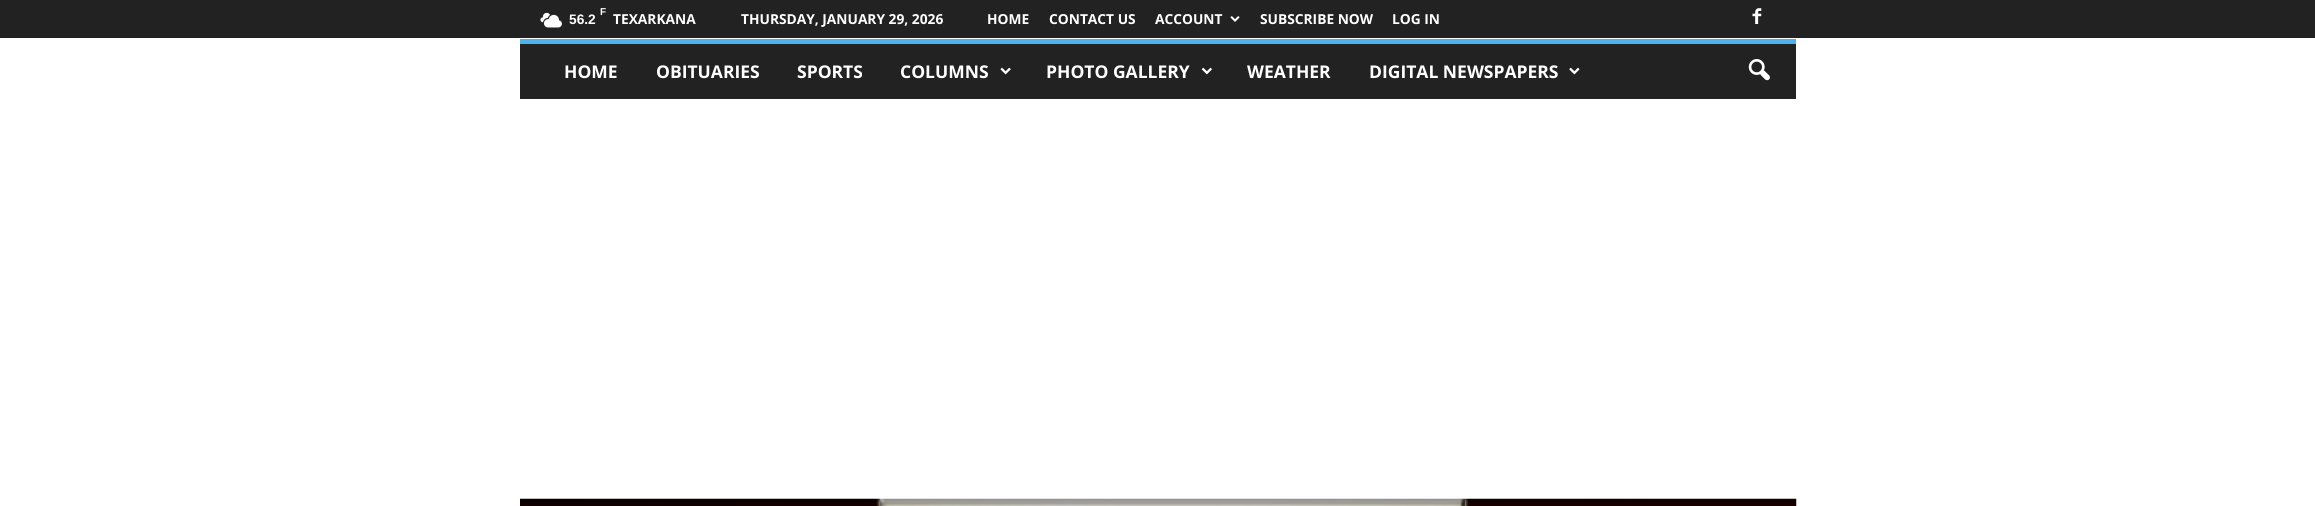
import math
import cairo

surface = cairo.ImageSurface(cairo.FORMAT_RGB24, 2315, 506)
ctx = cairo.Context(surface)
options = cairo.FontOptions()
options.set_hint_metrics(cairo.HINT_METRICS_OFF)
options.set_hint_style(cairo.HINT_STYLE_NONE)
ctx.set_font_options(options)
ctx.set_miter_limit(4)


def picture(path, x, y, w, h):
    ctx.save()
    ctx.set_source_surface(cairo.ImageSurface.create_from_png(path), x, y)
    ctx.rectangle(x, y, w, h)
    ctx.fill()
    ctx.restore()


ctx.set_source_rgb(1, 1, 1)
ctx.paint()
ctx.set_source_rgb(0.133, 0.133, 0.133)
ctx.rectangle(0, 0, 2315, 38)
ctx.fill()
picture("img1.png", 540, 12, 22, 16)
ctx.select_font_face("Liberation Sans", cairo.FONT_SLANT_NORMAL, cairo.FONT_WEIGHT_BOLD)
ctx.set_font_size(10)
ctx.set_source_rgb(1, 1, 1)
ctx.move_to(600, 15)
ctx.show_text("F")
ctx.set_font_size(13.75)
ctx.move_to(569, 24)
ctx.show_text("56.2")
ctx.select_font_face("Open Sans", cairo.FONT_SLANT_NORMAL, cairo.FONT_WEIGHT_BOLD)
ctx.move_to(613, 24)
ctx.show_text("TEXARKANA")
ctx.move_to(741, 24)
ctx.show_text("THURSDAY, JANUARY 29, 2026")
ctx.move_to(987, 24)
ctx.show_text("HOME")
ctx.move_to(1049, 24)
ctx.show_text("CONTACT US")
ctx.move_to(1155, 24)
ctx.show_text("ACCOUNT")
picture("img2.png", 1230, 16, 10, 6)
ctx.move_to(1260, 24)
ctx.show_text("SUBSCRIBE NOW")
ctx.move_to(1392, 24)
ctx.show_text("LOG IN")
picture("img3.png", 1752, 8, 10, 16)
ctx.set_source_rgb(0.133, 0.133, 0.133)
ctx.rectangle(520, 44, 1276, 55)
ctx.fill()
ctx.set_source_rgb(0.302, 0.698, 0.925)
ctx.rectangle(520, 39, 1276, 5)
ctx.fill()
ctx.set_font_size(17.5)
ctx.set_source_rgb(1, 1, 1)
ctx.move_to(564, 78)
ctx.show_text("HOME")
ctx.move_to(656, 78)
ctx.show_text("OBITUARIES")
ctx.move_to(797, 78)
ctx.show_text("SPORTS")
ctx.move_to(900, 78)
ctx.show_text("COLUMNS")
picture("img4.png", 1000, 67, 11, 8)
ctx.move_to(1046, 78)
ctx.show_text("PHOTO GALLERY")
picture("img5.png", 1201, 67, 11, 8)
ctx.move_to(1247, 78)
ctx.show_text("WEATHER")
ctx.move_to(1369, 78)
ctx.show_text("DIGITAL NEWSPAPERS")
picture("img6.png", 1569, 67, 11, 8)
picture("img7.png", 1748, 59, 22, 22)
picture("img8.png", 520, 498, 1277, 8)
surface.write_to_png("page.png")
